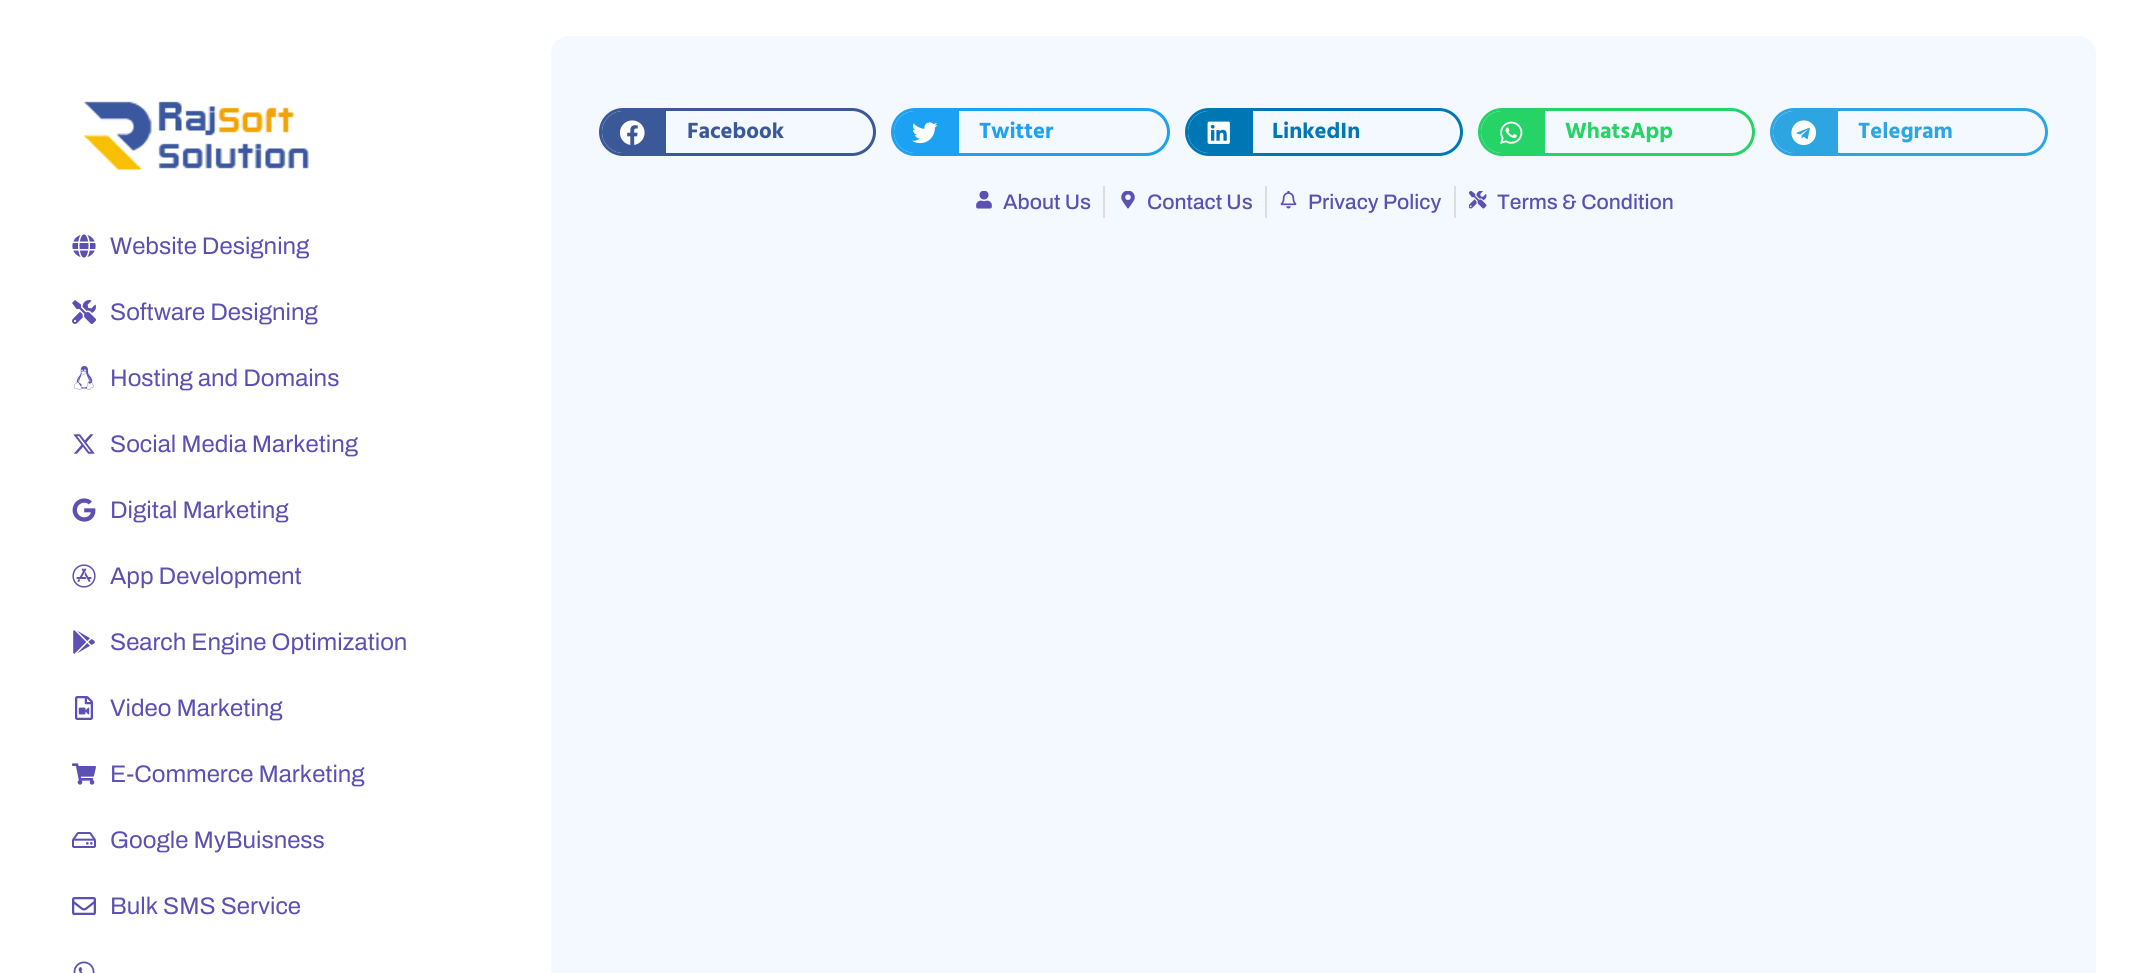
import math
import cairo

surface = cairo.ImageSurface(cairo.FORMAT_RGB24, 2131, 973)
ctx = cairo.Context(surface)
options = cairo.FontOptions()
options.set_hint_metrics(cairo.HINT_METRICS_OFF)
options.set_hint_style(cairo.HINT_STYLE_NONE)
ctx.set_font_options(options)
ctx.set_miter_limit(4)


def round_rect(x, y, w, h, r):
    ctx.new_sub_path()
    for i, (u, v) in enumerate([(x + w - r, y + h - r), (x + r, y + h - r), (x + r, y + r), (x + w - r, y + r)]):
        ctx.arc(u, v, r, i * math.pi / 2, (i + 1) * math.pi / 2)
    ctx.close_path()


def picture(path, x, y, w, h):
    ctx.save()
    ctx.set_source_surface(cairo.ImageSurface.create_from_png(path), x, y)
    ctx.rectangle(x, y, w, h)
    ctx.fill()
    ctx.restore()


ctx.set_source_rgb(1, 1, 1)
ctx.paint()
ctx.set_source_rgb(0.957, 0.969, 1)
round_rect(551, 36, 1545, 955, 18)
ctx.fill()
round_rect(600.5, 109.5, 274, 45, 22.5)
ctx.set_source_rgb(0.231, 0.349, 0.596)
ctx.set_line_width(3)
ctx.stroke()
ctx.new_path()
ctx.move_to(623, 111)
ctx.line_to(666, 111)
ctx.line_to(666, 153)
ctx.line_to(623, 153)
ctx.curve_to(611.5, 153, 602, 143.5, 602, 132)
ctx.curve_to(602, 120.5, 611.5, 111, 623, 111)
ctx.close_path()
ctx.fill()
picture("img1.png", 620, 120, 25, 25)
ctx.select_font_face("Hind", cairo.FONT_SLANT_NORMAL, cairo.FONT_WEIGHT_BOLD)
ctx.set_font_size(22.5)
ctx.move_to(687, 138)
ctx.show_text("Facebook")
round_rect(892.5, 109.5, 276, 45, 22.5)
ctx.set_source_rgb(0.114, 0.631, 0.949)
ctx.stroke()
ctx.new_path()
ctx.move_to(915, 111)
ctx.line_to(959, 111)
ctx.line_to(959, 153)
ctx.line_to(915, 153)
ctx.curve_to(903.5, 153, 894, 143.5, 894, 132)
ctx.curve_to(894, 120.5, 903.5, 111, 915, 111)
ctx.close_path()
ctx.fill()
picture("img2.png", 912, 122, 26, 22)
ctx.move_to(979, 138)
ctx.show_text("Twitter")
round_rect(1186.5, 109.5, 275, 45, 22.5)
ctx.set_source_rgb(0, 0.467, 0.71)
ctx.stroke()
ctx.new_path()
ctx.move_to(1209, 111)
ctx.line_to(1253, 111)
ctx.line_to(1253, 153)
ctx.line_to(1209, 153)
ctx.curve_to(1197.5, 153, 1188, 143.5, 1188, 132)
ctx.curve_to(1188, 120.5, 1197.5, 111, 1209, 111)
ctx.close_path()
ctx.fill()
picture("img3.png", 1207, 121, 23, 23)
ctx.move_to(1272, 138)
ctx.show_text("LinkedIn")
round_rect(1479.5, 109.5, 274, 45, 22.5)
ctx.set_source_rgb(0.145, 0.827, 0.4)
ctx.stroke()
ctx.new_path()
ctx.move_to(1502, 111)
ctx.line_to(1545, 111)
ctx.line_to(1545, 153)
ctx.line_to(1502, 153)
ctx.curve_to(1490.5, 153, 1481, 143.5, 1481, 132)
ctx.curve_to(1481, 120.5, 1490.5, 111, 1502, 111)
ctx.close_path()
ctx.fill()
picture("img4.png", 1500, 121, 23, 23)
ctx.move_to(1565, 138)
ctx.show_text("WhatsApp")
round_rect(1771.5, 109.5, 275, 45, 22.5)
ctx.set_source_rgb(0.173, 0.647, 0.878)
ctx.stroke()
ctx.new_path()
ctx.move_to(1794, 111)
ctx.line_to(1838, 111)
ctx.line_to(1838, 153)
ctx.line_to(1794, 153)
ctx.curve_to(1782.5, 153, 1773, 143.5, 1773, 132)
ctx.curve_to(1773, 120.5, 1782.5, 111, 1794, 111)
ctx.close_path()
ctx.fill()
picture("img5.png", 1791, 120, 26, 26)
ctx.move_to(1858, 138)
ctx.show_text("Telegram")
picture("img6.png", 976, 191, 16, 18)
ctx.select_font_face("Archivo Medium")
ctx.set_font_size(21)
ctx.set_source_rgb(0.361, 0.318, 0.702)
ctx.move_to(1003, 209)
ctx.show_text("About Us")
ctx.set_source_rgb(0.867, 0.867, 0.867)
ctx.rectangle(1103, 186, 2, 32)
ctx.fill()
picture("img7.png", 1121, 191, 14, 18)
ctx.set_source_rgb(0.361, 0.318, 0.702)
ctx.move_to(1147, 209)
ctx.show_text("Contact Us")
ctx.set_source_rgb(0.867, 0.867, 0.867)
ctx.rectangle(1265, 186, 2, 32)
ctx.fill()
picture("img8.png", 1280, 191, 17, 18)
ctx.set_source_rgb(0.361, 0.318, 0.702)
ctx.move_to(1308, 209)
ctx.show_text("Privacy Policy")
ctx.set_source_rgb(0.867, 0.867, 0.867)
ctx.rectangle(1454, 186, 2, 32)
ctx.fill()
picture("img9.png", 1469, 191, 18, 18)
ctx.set_source_rgb(0.361, 0.318, 0.702)
ctx.move_to(1497, 209)
ctx.show_text("Terms & Condition")
picture("img10.png", 84, 101, 225, 69)
picture("img11.png", 72, 234, 24, 24)
ctx.select_font_face("Archivo")
ctx.set_font_size(24)
ctx.move_to(110, 254)
ctx.show_text("Website Designing")
picture("img12.png", 72, 300, 24, 24)
ctx.move_to(110, 320)
ctx.show_text("Software Designing")
picture("img13.png", 74, 366, 20, 24)
ctx.move_to(110, 386)
ctx.show_text("Hosting and Domains")
picture("img14.png", 73, 434, 22, 20)
ctx.move_to(110, 452)
ctx.show_text("Social Media Marketing")
picture("img15.png", 72, 498, 24, 24)
ctx.move_to(110, 518)
ctx.show_text("Digital Marketing")
picture("img16.png", 72, 564, 24, 24)
ctx.move_to(110, 584)
ctx.show_text("App Development")
picture("img17.png", 73, 630, 22, 24)
ctx.move_to(110, 650)
ctx.show_text("Search Engine Optimization")
picture("img18.png", 75, 696, 18, 24)
ctx.move_to(110, 716)
ctx.show_text("Video Marketing")
picture("img19.png", 72, 763, 24, 22)
ctx.move_to(110, 782)
ctx.show_text("E-Commerce Marketing")
picture("img20.png", 72, 832, 24, 16)
ctx.move_to(110, 848)
ctx.show_text("Google MyBuisness")
picture("img21.png", 72, 897, 24, 18)
ctx.move_to(110, 914)
ctx.show_text("Bulk SMS Service")
picture("img22.png", 73, 961, 22, 12)
surface.write_to_png("page.png")
